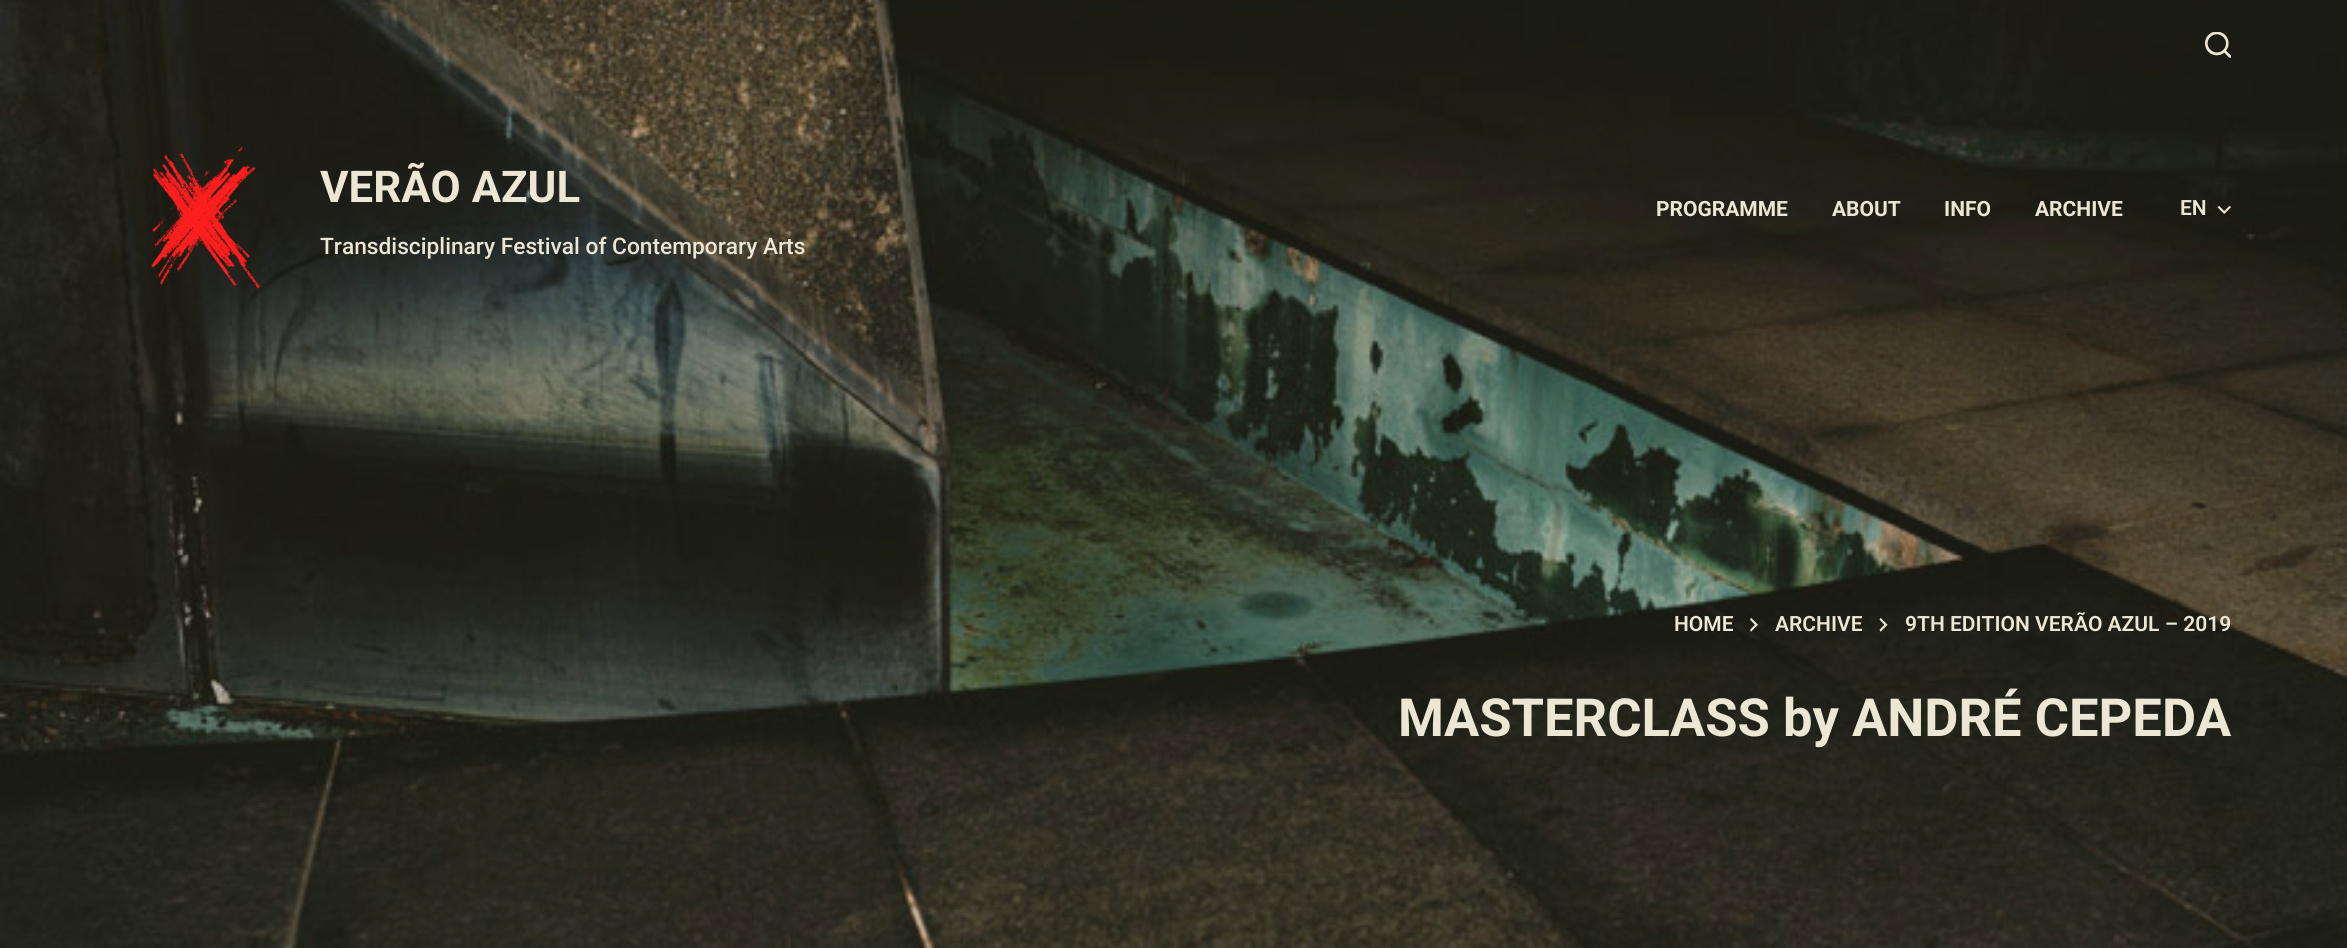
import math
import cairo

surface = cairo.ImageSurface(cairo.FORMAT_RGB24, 2347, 948)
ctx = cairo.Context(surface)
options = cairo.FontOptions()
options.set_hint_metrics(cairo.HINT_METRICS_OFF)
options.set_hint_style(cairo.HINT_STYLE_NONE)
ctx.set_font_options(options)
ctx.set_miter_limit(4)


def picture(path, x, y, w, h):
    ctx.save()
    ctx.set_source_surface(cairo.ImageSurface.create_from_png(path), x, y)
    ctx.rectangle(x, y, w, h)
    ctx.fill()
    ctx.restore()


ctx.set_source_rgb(1, 1, 1)
ctx.paint()
picture("img4.png", 0, 0, 2347, 948)
picture("img1.png", 2205, 32, 26, 26)
picture("img2.png", 151, 147, 110, 142)
ctx.select_font_face("Roboto", cairo.FONT_SLANT_NORMAL, cairo.FONT_WEIGHT_BOLD)
ctx.set_font_size(43.75)
ctx.set_source_rgb(0.925, 0.902, 0.835)
ctx.move_to(320, 202)
ctx.show_text("VERÃO AZUL")
ctx.select_font_face("Roboto Medium")
ctx.set_font_size(22.75)
ctx.move_to(320, 254)
ctx.show_text("Transdisciplinary Festival of Contemporary Arts")
ctx.select_font_face("Roboto", cairo.FONT_SLANT_NORMAL, cairo.FONT_WEIGHT_BOLD)
ctx.set_font_size(21)
ctx.move_to(1656, 216)
ctx.show_text("PROGRAMME")
ctx.move_to(1832, 216)
ctx.show_text("ABOUT")
ctx.move_to(1944, 216)
ctx.show_text("INFO")
ctx.move_to(2035, 216)
ctx.show_text("ARCHIVE")
ctx.select_font_face("Roboto SemiBold")
ctx.move_to(2180, 215)
ctx.show_text("EN")
picture("img3.png", 2217, 206, 14, 8)
ctx.move_to(1674, 631)
ctx.show_text("HOME")
picture("img5.png", 1750, 618, 8, 14)
ctx.move_to(1775, 631)
ctx.show_text("ARCHIVE")
picture("img6.png", 1879, 618, 9, 14)
ctx.move_to(1905, 631)
ctx.show_text("9TH EDITION VERÃO AZUL – 2019")
ctx.select_font_face("Roboto", cairo.FONT_SLANT_NORMAL, cairo.FONT_WEIGHT_BOLD)
ctx.set_font_size(52.5)
ctx.move_to(1398, 736)
ctx.show_text("MASTERCLASS by ANDRÉ CEPEDA")
surface.write_to_png("page.png")
